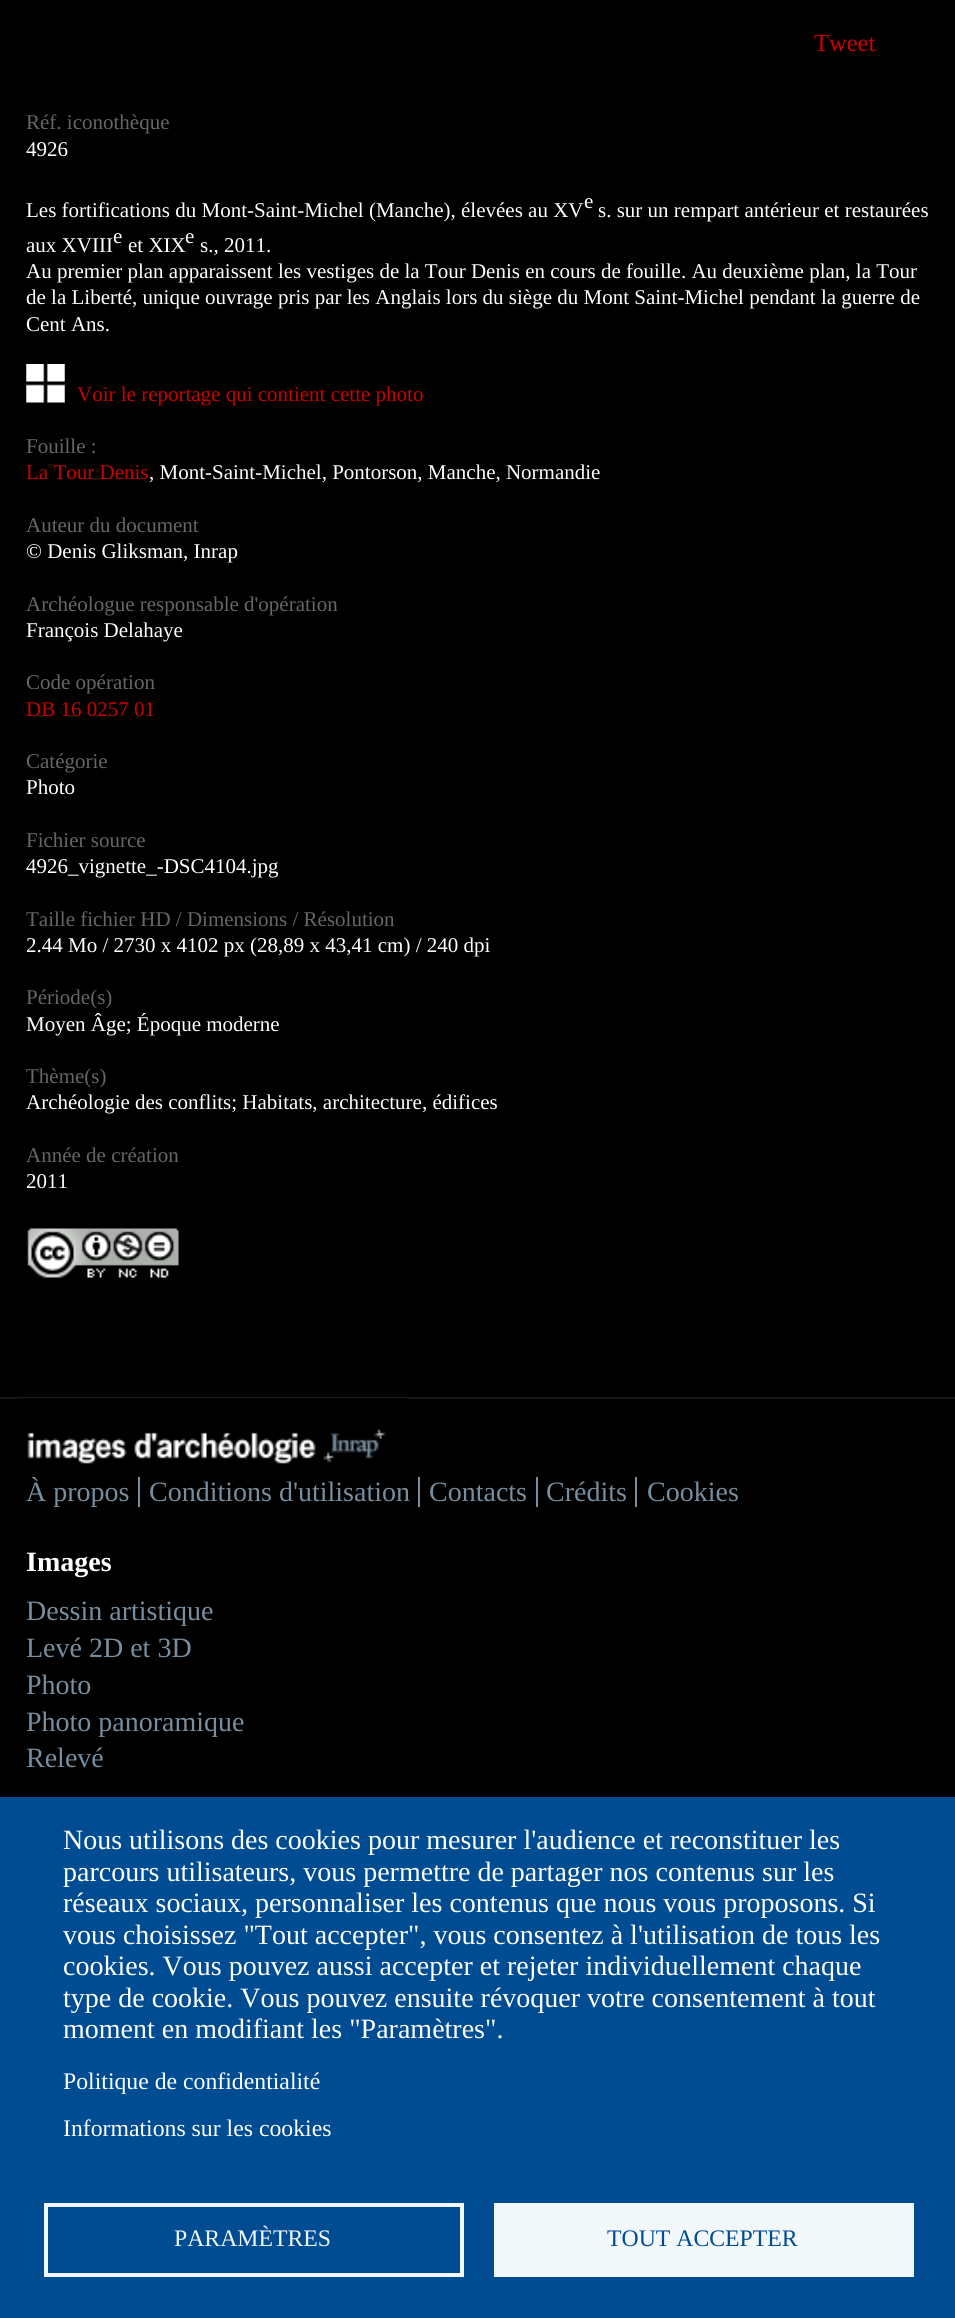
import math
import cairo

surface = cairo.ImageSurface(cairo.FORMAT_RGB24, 955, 2318)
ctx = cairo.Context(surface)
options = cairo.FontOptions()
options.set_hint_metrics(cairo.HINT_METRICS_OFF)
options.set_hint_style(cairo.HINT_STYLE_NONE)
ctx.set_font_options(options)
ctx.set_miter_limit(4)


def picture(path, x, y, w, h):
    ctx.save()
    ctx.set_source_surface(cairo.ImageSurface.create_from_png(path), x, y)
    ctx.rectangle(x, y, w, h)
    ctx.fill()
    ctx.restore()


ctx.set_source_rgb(0, 0, 0)
ctx.paint()
ctx.select_font_face("Liberation Serif")
ctx.set_font_size(24.5)
ctx.set_source_rgb(0.8, 0, 0)
ctx.move_to(814, 51)
ctx.show_text("Tweet")
ctx.set_font_size(21)
ctx.set_source_rgb(0.4, 0.4, 0.4)
ctx.move_to(26, 129)
ctx.show_text("Réf. iconothèque")
ctx.set_source_rgb(1, 1, 1)
ctx.move_to(26, 156)
ctx.show_text("4926")
ctx.move_to(26, 217)
ctx.show_text("Les fortifications du Mont-Saint-Michel (Manche), élevées au XV")
ctx.move_to(584, 208)
ctx.show_text("e")
ctx.move_to(598, 217)
ctx.show_text("s. sur un rempart antérieur et restaurées")
ctx.move_to(26, 252)
ctx.show_text("aux XVIII")
ctx.move_to(113, 243)
ctx.show_text("e")
ctx.move_to(128, 252)
ctx.show_text("et XIX")
ctx.move_to(185, 243)
ctx.show_text("e")
ctx.move_to(200, 252)
ctx.show_text("s., 2011.")
ctx.move_to(26, 278)
ctx.show_text("Au premier plan apparaissent les vestiges de la Tour Denis en cours de fouille. Au deuxième plan, la Tour")
ctx.move_to(26, 304)
ctx.show_text("de la Liberté, unique ouvrage pris par les Anglais lors du siège du Mont Saint-Michel pendant la guerre de")
ctx.move_to(26, 331)
ctx.show_text("Cent Ans.")
picture("img1.png", 26, 364, 39, 39)
ctx.set_source_rgb(0.8, 0, 0)
ctx.move_to(77, 401)
ctx.show_text("Voir le reportage qui contient cette photo")
ctx.set_source_rgb(0.4, 0.4, 0.4)
ctx.move_to(26, 453)
ctx.show_text("Fouille :")
ctx.set_source_rgb(0.8, 0, 0)
ctx.move_to(26, 479)
ctx.show_text("La Tour Denis")
ctx.set_source_rgb(1, 1, 1)
ctx.move_to(149, 479)
ctx.show_text(", Mont-Saint-Michel, Pontorson, Manche, Normandie")
ctx.set_source_rgb(0.4, 0.4, 0.4)
ctx.move_to(26, 532)
ctx.show_text("Auteur du document")
ctx.set_source_rgb(1, 1, 1)
ctx.move_to(26, 558)
ctx.show_text("© Denis Gliksman, Inrap")
ctx.set_source_rgb(0.4, 0.4, 0.4)
ctx.move_to(26, 611)
ctx.show_text("Archéologue responsable d'opération")
ctx.set_source_rgb(1, 1, 1)
ctx.move_to(26, 637)
ctx.show_text("François Delahaye")
ctx.set_source_rgb(0.4, 0.4, 0.4)
ctx.move_to(26, 689)
ctx.show_text("Code opération")
ctx.set_source_rgb(0.8, 0, 0)
ctx.move_to(26, 716)
ctx.show_text("DB 16 0257 01")
ctx.set_source_rgb(0.4, 0.4, 0.4)
ctx.move_to(26, 768)
ctx.show_text("Catégorie")
ctx.set_source_rgb(1, 1, 1)
ctx.move_to(26, 794)
ctx.show_text("Photo")
ctx.set_source_rgb(0.4, 0.4, 0.4)
ctx.move_to(26, 847)
ctx.show_text("Fichier source")
ctx.set_source_rgb(1, 1, 1)
ctx.move_to(26, 873)
ctx.show_text("4926_vignette_-DSC4104.jpg")
ctx.set_source_rgb(0.4, 0.4, 0.4)
ctx.move_to(26, 926)
ctx.show_text("Taille fichier HD / Dimensions / Résolution")
ctx.set_source_rgb(1, 1, 1)
ctx.move_to(26, 952)
ctx.show_text("2.44 Mo / 2730 x 4102 px (28,89 x 43,41 cm) / 240 dpi")
ctx.set_source_rgb(0.4, 0.4, 0.4)
ctx.move_to(26, 1004)
ctx.show_text("Période(s)")
ctx.set_source_rgb(1, 1, 1)
ctx.move_to(26, 1031)
ctx.show_text("Moyen Âge; Époque moderne")
ctx.set_source_rgb(0.4, 0.4, 0.4)
ctx.move_to(26, 1083)
ctx.show_text("Thème(s)")
ctx.set_source_rgb(1, 1, 1)
ctx.move_to(26, 1109)
ctx.show_text("Archéologie des conflits; Habitats, architecture, édifices")
ctx.set_source_rgb(0.4, 0.4, 0.4)
ctx.move_to(26, 1162)
ctx.show_text("Année de création")
ctx.set_source_rgb(1, 1, 1)
ctx.move_to(26, 1188)
ctx.show_text("2011")
picture("img2.png", 26, 1227, 153, 54)
ctx.set_source_rgb(0.102, 0.102, 0.102)
ctx.rectangle(0, 1397, 955, 2)
ctx.fill()
picture("img3.png", 17, 1398, 393, 66)
ctx.set_font_size(28)
ctx.set_source_rgb(0.471, 0.557, 0.62)
ctx.move_to(26, 1501)
ctx.show_text("À propos")
ctx.move_to(149, 1501)
ctx.show_text("Conditions d'utilisation")
ctx.rectangle(138, 1477, 2, 30)
ctx.fill()
ctx.move_to(429, 1501)
ctx.show_text("Contacts")
ctx.rectangle(418, 1477, 2, 30)
ctx.fill()
ctx.move_to(546, 1501)
ctx.show_text("Crédits")
ctx.rectangle(536, 1477, 2, 30)
ctx.fill()
ctx.move_to(647, 1501)
ctx.show_text("Cookies")
ctx.rectangle(635, 1477, 2, 30)
ctx.fill()
ctx.select_font_face("Liberation Serif", cairo.FONT_SLANT_NORMAL, cairo.FONT_WEIGHT_BOLD)
ctx.set_source_rgb(1, 1, 1)
ctx.move_to(26, 1571)
ctx.show_text("Images")
ctx.select_font_face("Liberation Serif")
ctx.set_source_rgb(0.471, 0.557, 0.62)
ctx.move_to(26, 1620)
ctx.show_text("Dessin artistique")
ctx.move_to(26, 1657)
ctx.show_text("Levé 2D et 3D")
ctx.move_to(26, 1694)
ctx.show_text("Photo")
ctx.move_to(26, 1731)
ctx.show_text("Photo panoramique")
ctx.move_to(26, 1767)
ctx.show_text("Relevé")
ctx.set_source_rgb(0, 0.298, 0.576)
ctx.rectangle(0, 1797, 955, 521)
ctx.fill()
ctx.set_source_rgb(1, 1, 1)
ctx.move_to(63, 1849)
ctx.show_text("Nous utilisons des cookies pour mesurer l'audience et reconstituer les")
ctx.move_to(63, 1881)
ctx.show_text("parcours utilisateurs, vous permettre de partager nos contenus sur les")
ctx.move_to(63, 1912)
ctx.show_text("réseaux sociaux, personnaliser les contenus que nous vous proposons. Si")
ctx.move_to(63, 1944)
ctx.show_text("vous choisissez \"Tout accepter\", vous consentez à l'utilisation de tous les")
ctx.move_to(63, 1975)
ctx.show_text("cookies. Vous pouvez aussi accepter et rejeter individuellement chaque")
ctx.move_to(63, 2007)
ctx.show_text("type de cookie. Vous pouvez ensuite révoquer votre consentement à tout")
ctx.move_to(63, 2038)
ctx.show_text("moment en modifiant les \"Paramètres\".")
ctx.set_font_size(23.75)
ctx.move_to(63, 2089)
ctx.show_text("Politique de confidentialité")
ctx.move_to(63, 2136)
ctx.show_text("Informations sur les cookies")
ctx.rectangle(46, 2205, 416, 70)
ctx.set_source_rgb(0.949, 0.965, 0.98)
ctx.set_line_width(4)
ctx.stroke()
ctx.move_to(174, 2246)
ctx.show_text("PARAMÈTRES")
ctx.rectangle(494, 2203, 420, 74)
ctx.fill()
ctx.set_source_rgb(0, 0.298, 0.576)
ctx.move_to(607, 2246)
ctx.show_text("TOUT ACCEPTER")
surface.write_to_png("page.png")
